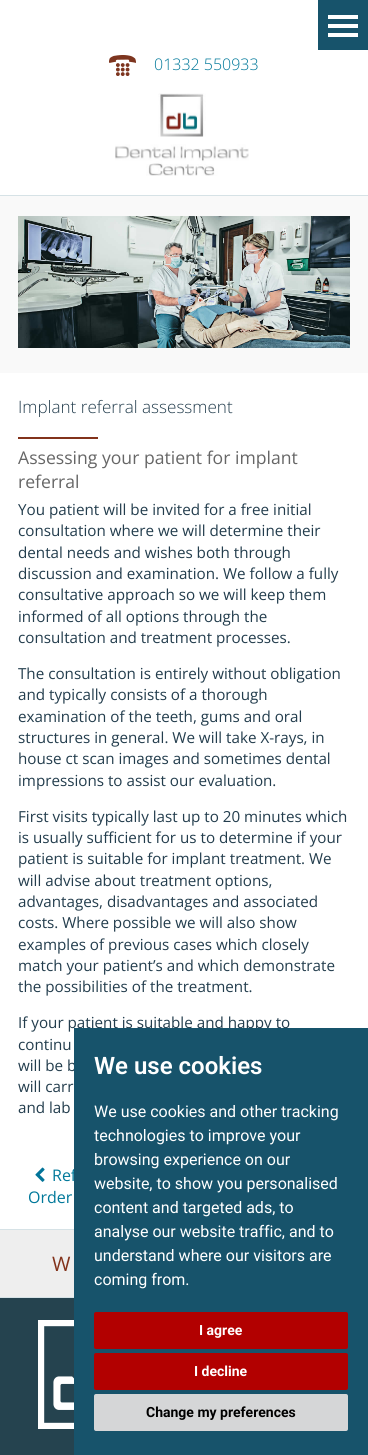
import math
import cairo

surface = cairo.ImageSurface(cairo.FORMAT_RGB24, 368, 1455)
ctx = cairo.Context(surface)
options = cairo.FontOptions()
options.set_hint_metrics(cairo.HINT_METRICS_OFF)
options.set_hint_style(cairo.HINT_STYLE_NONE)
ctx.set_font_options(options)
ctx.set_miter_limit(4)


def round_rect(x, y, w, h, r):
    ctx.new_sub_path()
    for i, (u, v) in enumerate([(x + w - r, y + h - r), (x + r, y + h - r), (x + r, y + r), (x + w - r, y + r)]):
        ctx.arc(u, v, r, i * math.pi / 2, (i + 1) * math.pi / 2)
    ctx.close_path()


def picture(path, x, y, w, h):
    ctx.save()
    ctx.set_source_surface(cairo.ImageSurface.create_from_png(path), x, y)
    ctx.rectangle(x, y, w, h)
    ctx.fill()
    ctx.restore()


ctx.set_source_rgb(1, 1, 1)
ctx.paint()
ctx.set_source_rgb(0.09, 0.325, 0.42)
ctx.rectangle(318, 0, 50, 50)
ctx.fill()
ctx.set_source_rgb(1, 1, 1)
ctx.rectangle(328, 15, 30, 4)
ctx.fill()
ctx.rectangle(328, 24, 30, 4)
ctx.fill()
ctx.rectangle(328, 33, 30, 4)
ctx.fill()
picture("img1.png", 109, 55, 27, 21)
ctx.select_font_face("Open Sans Light")
ctx.set_font_size(16)
ctx.set_source_rgb(0, 0.471, 0.604)
ctx.move_to(154, 70)
ctx.show_text("01332 550933")
picture("img2.png", 115, 93, 134, 83)
ctx.set_source_rgb(0.839, 0.886, 0.902)
ctx.rectangle(0, 195, 368, 1)
ctx.fill()
ctx.set_source_rgb(0.976, 0.976, 0.976)
ctx.rectangle(0, 196, 368, 177)
ctx.fill()
picture("img3.png", 18, 216, 332, 132)
ctx.set_source_rgb(0.51, 0.196, 0.106)
ctx.rectangle(18, 437, 80, 2)
ctx.fill()
ctx.set_font_size(17.1)
ctx.set_source_rgb(0.137, 0.239, 0.302)
ctx.move_to(18, 413)
ctx.show_text("Implant referral assessment")
ctx.select_font_face("Open Sans")
ctx.set_font_size(17.6)
ctx.set_source_rgb(0.4, 0.4, 0.4)
ctx.move_to(18, 464)
ctx.show_text("Assessing your patient for implant")
ctx.move_to(18, 488)
ctx.show_text("referral")
ctx.set_font_size(15.2)
ctx.set_source_rgb(0.137, 0.239, 0.302)
ctx.move_to(18, 515)
ctx.show_text("You patient will be invited for a free initial")
ctx.move_to(18, 536)
ctx.show_text("consultation where we will determine their")
ctx.move_to(18, 558)
ctx.show_text("dental needs and wishes both through")
ctx.move_to(18, 579)
ctx.show_text("discussion and examination. We follow a fully")
ctx.move_to(18, 600)
ctx.show_text("consultative approach so we will keep them")
ctx.move_to(18, 622)
ctx.show_text("informed of all options through the")
ctx.move_to(18, 643)
ctx.show_text("consultation and treatment processes.")
ctx.move_to(18, 679)
ctx.show_text("The consultation is entirely without obligation")
ctx.move_to(18, 700)
ctx.show_text("and typically consists of a thorough")
ctx.move_to(18, 722)
ctx.show_text("examination of the teeth, gums and oral")
ctx.move_to(18, 743)
ctx.show_text("structures in general. We will take X-rays, in")
ctx.move_to(18, 764)
ctx.show_text("house ct scan images and sometimes dental")
ctx.move_to(18, 786)
ctx.show_text("impressions to assist our evaluation.")
ctx.move_to(18, 822)
ctx.show_text("First visits typically last up to 20 minutes which")
ctx.move_to(18, 843)
ctx.show_text("is usually sufficient for us to determine if your")
ctx.move_to(18, 864)
ctx.show_text("patient is suitable for implant treatment. We")
ctx.move_to(18, 886)
ctx.show_text("will advise about treatment options,")
ctx.move_to(18, 907)
ctx.show_text("advantages, disadvantages and associated")
ctx.move_to(18, 928)
ctx.show_text("costs. Where possible we will also show")
ctx.move_to(18, 950)
ctx.show_text("examples of previous cases which closely")
ctx.move_to(18, 971)
ctx.show_text("match your patient’s and which demonstrate")
ctx.move_to(18, 992)
ctx.show_text("the possibilities of the treatment.")
ctx.move_to(18, 1028)
ctx.show_text("If your patient is suitable and happy to")
ctx.move_to(18, 1050)
ctx.show_text("continu")
ctx.move_to(18, 1071)
ctx.show_text("will be b")
ctx.move_to(18, 1092)
ctx.show_text("will carr")
ctx.move_to(18, 1113)
ctx.show_text("and lab")
picture("img4.png", 35, 1167, 10, 15)
ctx.set_font_size(16)
ctx.set_source_rgb(0, 0.471, 0.604)
ctx.move_to(52, 1181)
ctx.show_text("Ref")
ctx.move_to(28, 1203)
ctx.show_text("Order")
ctx.set_source_rgb(0.839, 0.886, 0.902)
ctx.rectangle(0, 1229, 74, 1)
ctx.fill()
ctx.set_source_rgb(0.09, 0.325, 0.42)
ctx.rectangle(74, 1028, 294, 427)
ctx.fill()
ctx.select_font_face("Roboto SemiBold")
ctx.set_font_size(24)
ctx.set_source_rgb(1, 1, 1)
ctx.move_to(94, 1074)
ctx.show_text("We use cookies")
ctx.select_font_face("Roboto")
ctx.set_font_size(16)
ctx.move_to(94, 1117)
ctx.show_text("We use cookies and other tracking")
ctx.move_to(94, 1141)
ctx.show_text("technologies to improve your")
ctx.move_to(94, 1165)
ctx.show_text("browsing experience on our")
ctx.move_to(94, 1189)
ctx.show_text("website, to show you personalised")
ctx.move_to(94, 1213)
ctx.show_text("content and targeted ads, to")
ctx.move_to(94, 1237)
ctx.show_text("analyse our website traffic, and to")
ctx.move_to(94, 1261)
ctx.show_text("understand where our visitors are")
ctx.move_to(94, 1285)
ctx.show_text("coming from.")
ctx.set_source_rgb(0.698, 0, 0)
round_rect(94, 1312, 254, 37, 2)
ctx.fill()
ctx.select_font_face("Roboto", cairo.FONT_SLANT_NORMAL, cairo.FONT_WEIGHT_BOLD)
ctx.set_font_size(14)
ctx.set_source_rgb(1, 1, 1)
ctx.move_to(199, 1335)
ctx.show_text("I agree")
ctx.set_source_rgb(0.698, 0, 0)
round_rect(94, 1353, 254, 37, 2)
ctx.fill()
ctx.set_source_rgb(1, 1, 1)
ctx.move_to(194, 1376)
ctx.show_text("I decline")
ctx.set_source_rgb(0.835, 0.839, 0.843)
round_rect(94, 1394, 254, 37, 2)
ctx.fill()
ctx.set_source_rgb(0, 0, 0)
ctx.move_to(146, 1417)
ctx.show_text("Change my preferences")
ctx.set_source_rgb(0.933, 0.933, 0.933)
ctx.rectangle(0, 1230, 74, 67)
ctx.fill()
ctx.select_font_face("Open Sans")
ctx.set_font_size(20)
ctx.set_source_rgb(0.51, 0.196, 0.106)
ctx.move_to(52, 1271)
ctx.show_text("W")
ctx.set_source_rgb(0.839, 0.886, 0.902)
ctx.rectangle(0, 1297, 74, 1)
ctx.fill()
ctx.set_source_rgb(0.145, 0.263, 0.31)
ctx.rectangle(0, 1298, 74, 157)
ctx.fill()
picture("img5.png", 38, 1320, 36, 109)
surface.write_to_png("page.png")
